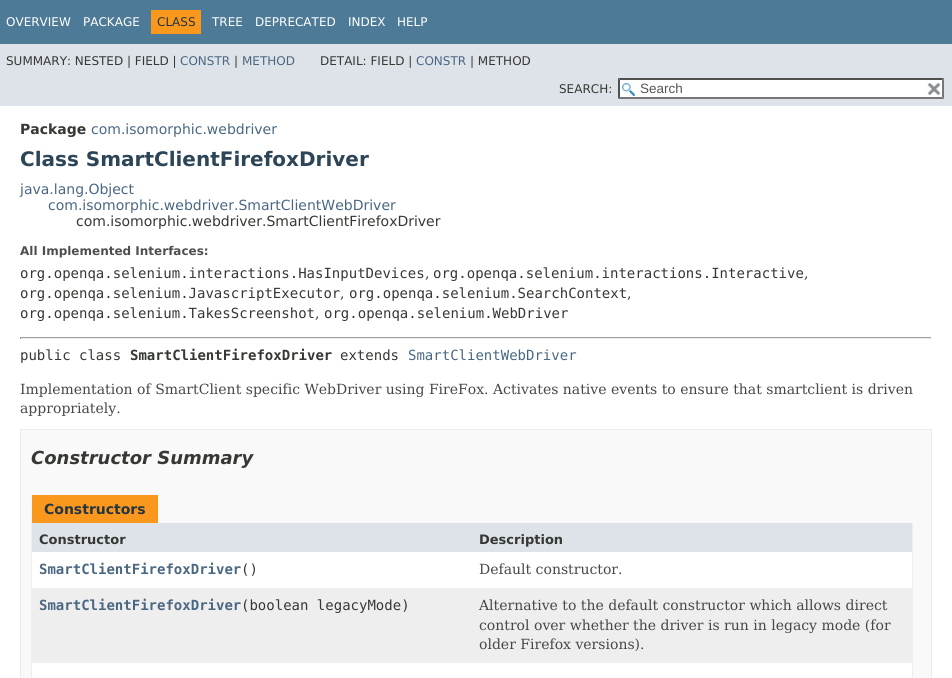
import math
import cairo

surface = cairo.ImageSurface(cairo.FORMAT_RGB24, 952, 678)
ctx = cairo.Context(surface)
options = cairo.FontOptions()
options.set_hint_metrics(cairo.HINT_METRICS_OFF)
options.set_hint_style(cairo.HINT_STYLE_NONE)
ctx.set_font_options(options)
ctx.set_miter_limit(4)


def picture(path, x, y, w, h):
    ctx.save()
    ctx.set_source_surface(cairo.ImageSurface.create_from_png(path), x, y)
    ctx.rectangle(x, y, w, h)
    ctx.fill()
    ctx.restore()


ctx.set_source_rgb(1, 1, 1)
ctx.paint()
ctx.set_source_rgb(0.302, 0.478, 0.592)
ctx.rectangle(0, 0, 952, 44)
ctx.fill()
ctx.select_font_face("DejaVu Sans")
ctx.set_font_size(12)
ctx.set_source_rgb(1, 1, 1)
ctx.move_to(6, 26)
ctx.show_text("OVERVIEW")
ctx.move_to(83, 26)
ctx.show_text("PACKAGE")
ctx.set_source_rgb(0.973, 0.596, 0.114)
ctx.rectangle(151, 10, 50, 24)
ctx.fill()
ctx.set_source_rgb(0.145, 0.204, 0.255)
ctx.move_to(157, 26)
ctx.show_text("CLASS")
ctx.set_source_rgb(1, 1, 1)
ctx.move_to(212, 26)
ctx.show_text("TREE")
ctx.move_to(255, 26)
ctx.show_text("DEPRECATED")
ctx.move_to(348, 26)
ctx.show_text("INDEX")
ctx.move_to(397, 26)
ctx.show_text("HELP")
ctx.set_source_rgb(0.871, 0.89, 0.914)
ctx.rectangle(0, 44, 952, 62)
ctx.fill()
ctx.set_source_rgb(0.208, 0.22, 0.2)
ctx.move_to(6, 65)
ctx.show_text("SUMMARY: NESTED | FIELD |")
ctx.set_source_rgb(0.29, 0.404, 0.51)
ctx.move_to(180, 65)
ctx.show_text("CONSTR")
ctx.set_source_rgb(0.208, 0.22, 0.2)
ctx.move_to(234, 65)
ctx.show_text("|")
ctx.set_source_rgb(0.29, 0.404, 0.51)
ctx.move_to(242, 65)
ctx.show_text("METHOD")
ctx.set_source_rgb(0.208, 0.22, 0.2)
ctx.move_to(320, 65)
ctx.show_text("DETAIL: FIELD |")
ctx.set_source_rgb(0.29, 0.404, 0.51)
ctx.move_to(416, 65)
ctx.show_text("CONSTR")
ctx.set_source_rgb(0.208, 0.22, 0.2)
ctx.move_to(470, 65)
ctx.show_text("| METHOD")
ctx.move_to(559, 93)
ctx.show_text("SEARCH:")
ctx.set_source_rgb(1, 1, 1)
ctx.rectangle(618, 78, 326, 21)
ctx.fill()
picture("img1.png", 622, 83, 13, 13)
ctx.set_source_rgb(0.31, 0.31, 0.31)
ctx.new_path()
ctx.move_to(618, 78)
ctx.line_to(944, 78)
ctx.line_to(942, 80)
ctx.line_to(620, 80)
ctx.close_path()
ctx.fill()
ctx.set_source_rgb(0.463, 0.463, 0.463)
ctx.new_path()
ctx.move_to(944, 78)
ctx.line_to(944, 99)
ctx.line_to(942, 97)
ctx.line_to(942, 80)
ctx.close_path()
ctx.fill()
ctx.new_path()
ctx.move_to(944, 99)
ctx.line_to(618, 99)
ctx.line_to(620, 97)
ctx.line_to(942, 97)
ctx.close_path()
ctx.fill()
ctx.set_source_rgb(0.31, 0.31, 0.31)
ctx.new_path()
ctx.move_to(618, 99)
ctx.line_to(618, 78)
ctx.line_to(620, 80)
ctx.line_to(620, 97)
ctx.close_path()
ctx.fill()
ctx.select_font_face("Liberation Sans")
ctx.set_font_size(13.5)
ctx.set_source_rgb(0.329, 0.329, 0.329)
ctx.move_to(640, 93)
ctx.show_text("Search")
picture("img2.png", 927, 83, 14, 12)
ctx.select_font_face("DejaVu Sans", cairo.FONT_SLANT_NORMAL, cairo.FONT_WEIGHT_BOLD)
ctx.set_font_size(14)
ctx.set_source_rgb(0.208, 0.22, 0.2)
ctx.move_to(20, 134)
ctx.show_text("Package")
ctx.select_font_face("DejaVu Sans")
ctx.set_source_rgb(0.29, 0.404, 0.51)
ctx.move_to(91, 134)
ctx.show_text("com.isomorphic.webdriver")
ctx.select_font_face("DejaVu Sans", cairo.FONT_SLANT_NORMAL, cairo.FONT_WEIGHT_BOLD)
ctx.set_font_size(20)
ctx.set_source_rgb(0.173, 0.271, 0.341)
ctx.move_to(20, 166)
ctx.show_text("Class SmartClientFirefoxDriver")
ctx.select_font_face("DejaVu Sans")
ctx.set_font_size(14)
ctx.set_source_rgb(0.29, 0.404, 0.51)
ctx.move_to(20, 194)
ctx.show_text("java.lang.Object")
ctx.move_to(48, 210)
ctx.show_text("com.isomorphic.webdriver.SmartClientWebDriver")
ctx.set_source_rgb(0.208, 0.22, 0.2)
ctx.move_to(76, 226)
ctx.show_text("com.isomorphic.webdriver.SmartClientFirefoxDriver")
ctx.select_font_face("DejaVu Sans", cairo.FONT_SLANT_NORMAL, cairo.FONT_WEIGHT_BOLD)
ctx.set_font_size(12)
ctx.set_source_rgb(0.306, 0.306, 0.306)
ctx.move_to(20, 255)
ctx.show_text("All Implemented Interfaces:")
ctx.select_font_face("DejaVu Sans Mono")
ctx.set_font_size(14)
ctx.set_source_rgb(0.208, 0.22, 0.2)
ctx.move_to(20, 278)
ctx.show_text("org.openqa.selenium.interactions.HasInputDevices")
ctx.select_font_face("DejaVu Serif")
ctx.move_to(425, 278)
ctx.show_text(",")
ctx.select_font_face("DejaVu Sans Mono")
ctx.move_to(433, 278)
ctx.show_text("org.openqa.selenium.interactions.Interactive")
ctx.select_font_face("DejaVu Serif")
ctx.move_to(804, 278)
ctx.show_text(",")
ctx.select_font_face("DejaVu Sans Mono")
ctx.move_to(20, 298)
ctx.show_text("org.openqa.selenium.JavascriptExecutor")
ctx.select_font_face("DejaVu Serif")
ctx.move_to(340, 298)
ctx.show_text(",")
ctx.select_font_face("DejaVu Sans Mono")
ctx.move_to(349, 298)
ctx.show_text("org.openqa.selenium.SearchContext")
ctx.select_font_face("DejaVu Serif")
ctx.move_to(627, 298)
ctx.show_text(",")
ctx.select_font_face("DejaVu Sans Mono")
ctx.move_to(20, 318)
ctx.show_text("org.openqa.selenium.TakesScreenshot")
ctx.select_font_face("DejaVu Serif")
ctx.move_to(315, 318)
ctx.show_text(",")
ctx.select_font_face("DejaVu Sans Mono")
ctx.move_to(324, 318)
ctx.show_text("org.openqa.selenium.WebDriver")
ctx.set_source_rgb(0.624, 0.624, 0.624)
ctx.rectangle(20, 337, 912, 1)
ctx.fill()
ctx.set_source_rgb(0.933, 0.933, 0.933)
ctx.rectangle(931, 337, 1, 2)
ctx.fill()
ctx.rectangle(20, 338, 912, 1)
ctx.fill()
ctx.set_source_rgb(0.624, 0.624, 0.624)
ctx.rectangle(20, 337, 1, 2)
ctx.fill()
ctx.set_source_rgb(0.208, 0.22, 0.2)
ctx.move_to(20, 360)
ctx.show_text("public class")
ctx.select_font_face("DejaVu Sans Mono", cairo.FONT_SLANT_NORMAL, cairo.FONT_WEIGHT_BOLD)
ctx.move_to(130, 360)
ctx.show_text("SmartClientFirefoxDriver")
ctx.select_font_face("DejaVu Sans Mono")
ctx.move_to(340, 360)
ctx.show_text("extends")
ctx.set_source_rgb(0.29, 0.404, 0.51)
ctx.move_to(408, 360)
ctx.show_text("SmartClientWebDriver")
ctx.select_font_face("DejaVu Serif")
ctx.set_source_rgb(0.278, 0.278, 0.278)
ctx.move_to(20, 394)
ctx.show_text("Implementation of SmartClient specific WebDriver using FireFox. Activates native events to ensure that smartclient is driven")
ctx.move_to(20, 413)
ctx.show_text("appropriately.")
ctx.set_source_rgb(0.973, 0.973, 0.973)
ctx.rectangle(20.5, 429.5, 911, 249)
ctx.fill_preserve()
ctx.set_source_rgb(0.929, 0.929, 0.929)
ctx.set_line_width(1)
ctx.stroke()
ctx.select_font_face("DejaVu Sans", cairo.FONT_SLANT_ITALIC, cairo.FONT_WEIGHT_BOLD)
ctx.set_font_size(18)
ctx.set_source_rgb(0.208, 0.22, 0.2)
ctx.move_to(31, 464)
ctx.show_text("Constructor Summary")
ctx.set_source_rgb(0.973, 0.596, 0.114)
ctx.rectangle(32, 495, 126, 28)
ctx.fill()
ctx.select_font_face("DejaVu Sans", cairo.FONT_SLANT_NORMAL, cairo.FONT_WEIGHT_BOLD)
ctx.set_font_size(14)
ctx.set_source_rgb(0.145, 0.204, 0.255)
ctx.move_to(44, 514)
ctx.show_text("Constructors")
ctx.set_source_rgb(0.933, 0.933, 0.933)
ctx.rectangle(912, 523, 1, 155)
ctx.fill()
ctx.rectangle(31, 523, 1, 155)
ctx.fill()
ctx.set_source_rgb(0.871, 0.89, 0.914)
ctx.rectangle(32, 523, 880, 29)
ctx.fill()
ctx.set_font_size(13)
ctx.set_source_rgb(0.208, 0.22, 0.2)
ctx.move_to(39, 544)
ctx.show_text("Constructor")
ctx.move_to(479, 544)
ctx.show_text("Description")
ctx.set_source_rgb(1, 1, 1)
ctx.rectangle(32, 552, 880, 36)
ctx.fill()
ctx.select_font_face("DejaVu Sans Mono", cairo.FONT_SLANT_NORMAL, cairo.FONT_WEIGHT_BOLD)
ctx.set_font_size(14)
ctx.set_source_rgb(0.29, 0.404, 0.51)
ctx.move_to(39, 574)
ctx.show_text("SmartClientFirefoxDriver")
ctx.select_font_face("DejaVu Sans Mono")
ctx.set_source_rgb(0.208, 0.22, 0.2)
ctx.move_to(241, 574)
ctx.show_text("()")
ctx.select_font_face("DejaVu Serif")
ctx.set_source_rgb(0.278, 0.278, 0.278)
ctx.move_to(479, 574)
ctx.show_text("Default constructor.")
ctx.set_source_rgb(0.933, 0.933, 0.937)
ctx.rectangle(32, 588, 880, 75)
ctx.fill()
ctx.select_font_face("DejaVu Sans Mono", cairo.FONT_SLANT_NORMAL, cairo.FONT_WEIGHT_BOLD)
ctx.set_source_rgb(0.29, 0.404, 0.51)
ctx.move_to(39, 610)
ctx.show_text("SmartClientFirefoxDriver")
ctx.select_font_face("DejaVu Sans Mono")
ctx.set_source_rgb(0.208, 0.22, 0.2)
ctx.move_to(241, 610)
ctx.show_text("(boolean legacyMode)")
ctx.select_font_face("DejaVu Serif")
ctx.set_source_rgb(0.278, 0.278, 0.278)
ctx.move_to(479, 610)
ctx.show_text("Alternative to the default constructor which allows direct")
ctx.move_to(479, 630)
ctx.show_text("control over whether the driver is run in legacy mode (for")
ctx.move_to(479, 649)
ctx.show_text("older Firefox versions).")
ctx.set_source_rgb(1, 1, 1)
ctx.rectangle(32, 663, 880, 15)
ctx.fill()
surface.write_to_png("page.png")
